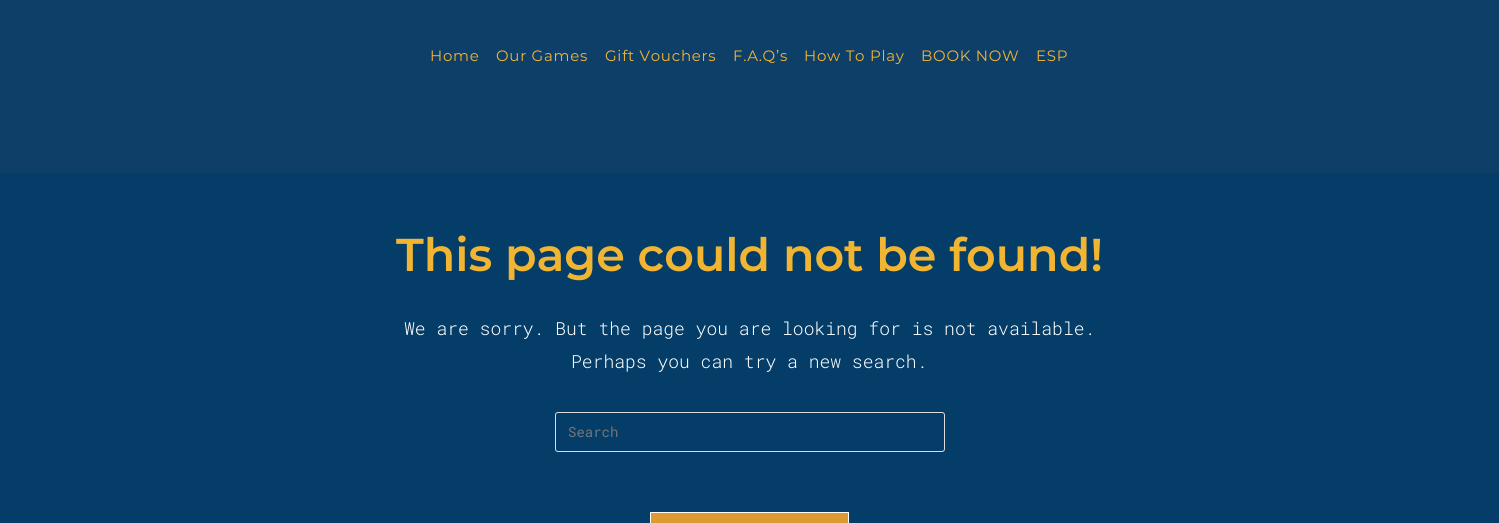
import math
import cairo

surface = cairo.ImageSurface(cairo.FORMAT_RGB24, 1499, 523)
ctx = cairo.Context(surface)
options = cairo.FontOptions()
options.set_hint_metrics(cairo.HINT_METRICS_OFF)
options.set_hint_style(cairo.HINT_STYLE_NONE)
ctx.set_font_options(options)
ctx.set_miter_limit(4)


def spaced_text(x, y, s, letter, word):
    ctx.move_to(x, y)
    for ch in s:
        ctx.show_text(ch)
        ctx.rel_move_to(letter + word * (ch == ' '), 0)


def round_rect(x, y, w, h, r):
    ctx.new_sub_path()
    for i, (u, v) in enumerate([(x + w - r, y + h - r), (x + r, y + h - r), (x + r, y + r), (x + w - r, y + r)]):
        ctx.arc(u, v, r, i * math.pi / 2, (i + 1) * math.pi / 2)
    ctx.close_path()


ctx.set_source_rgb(0.02, 0.239, 0.412)
ctx.paint()
ctx.set_source_rgb(0.055, 0.247, 0.412)
ctx.rectangle(0, 0, 1499, 173)
ctx.fill()
ctx.select_font_face("Montserrat")
ctx.set_font_size(15)
ctx.set_source_rgb(0.949, 0.71, 0.192)
spaced_text(430, 61, "Home", 0.75, 0)
spaced_text(496, 61, "Our Games", 0.75, 0)
spaced_text(605, 61, "Gift Vouchers", 0.75, 0)
spaced_text(733, 61, "F.A.Q’s", 0.75, 0)
spaced_text(804, 61, "How To Play", 0.75, 0)
spaced_text(921, 61, "BOOK NOW", 0.75, 0)
spaced_text(1036, 61, "ESP", 0.75, 0)
ctx.select_font_face("Montserrat SemiBold")
ctx.set_font_size(46)
ctx.move_to(396, 271)
ctx.show_text("This page could not be found!")
ctx.select_font_face("Roboto Mono Light")
ctx.set_font_size(18)
ctx.set_source_rgb(1, 1, 1)
ctx.move_to(404, 335)
ctx.show_text("We are sorry. But the page you are looking for is not available.")
ctx.move_to(571, 368)
ctx.show_text("Perhaps you can try a new search.")
round_rect(555.5, 412.5, 389, 39, 2.5)
ctx.set_source_rgb(0.867, 0.867, 0.867)
ctx.set_line_width(1)
ctx.stroke()
ctx.select_font_face("Roboto Mono")
ctx.set_font_size(14)
ctx.set_source_rgb(0.459, 0.459, 0.459)
ctx.move_to(568, 437)
ctx.show_text("Search")
ctx.set_source_rgb(0.867, 0.6, 0.2)
ctx.rectangle(650.5, 512.5, 198, 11)
ctx.fill_preserve()
ctx.set_source_rgb(1, 1, 1)
ctx.stroke()
surface.write_to_png("page.png")
